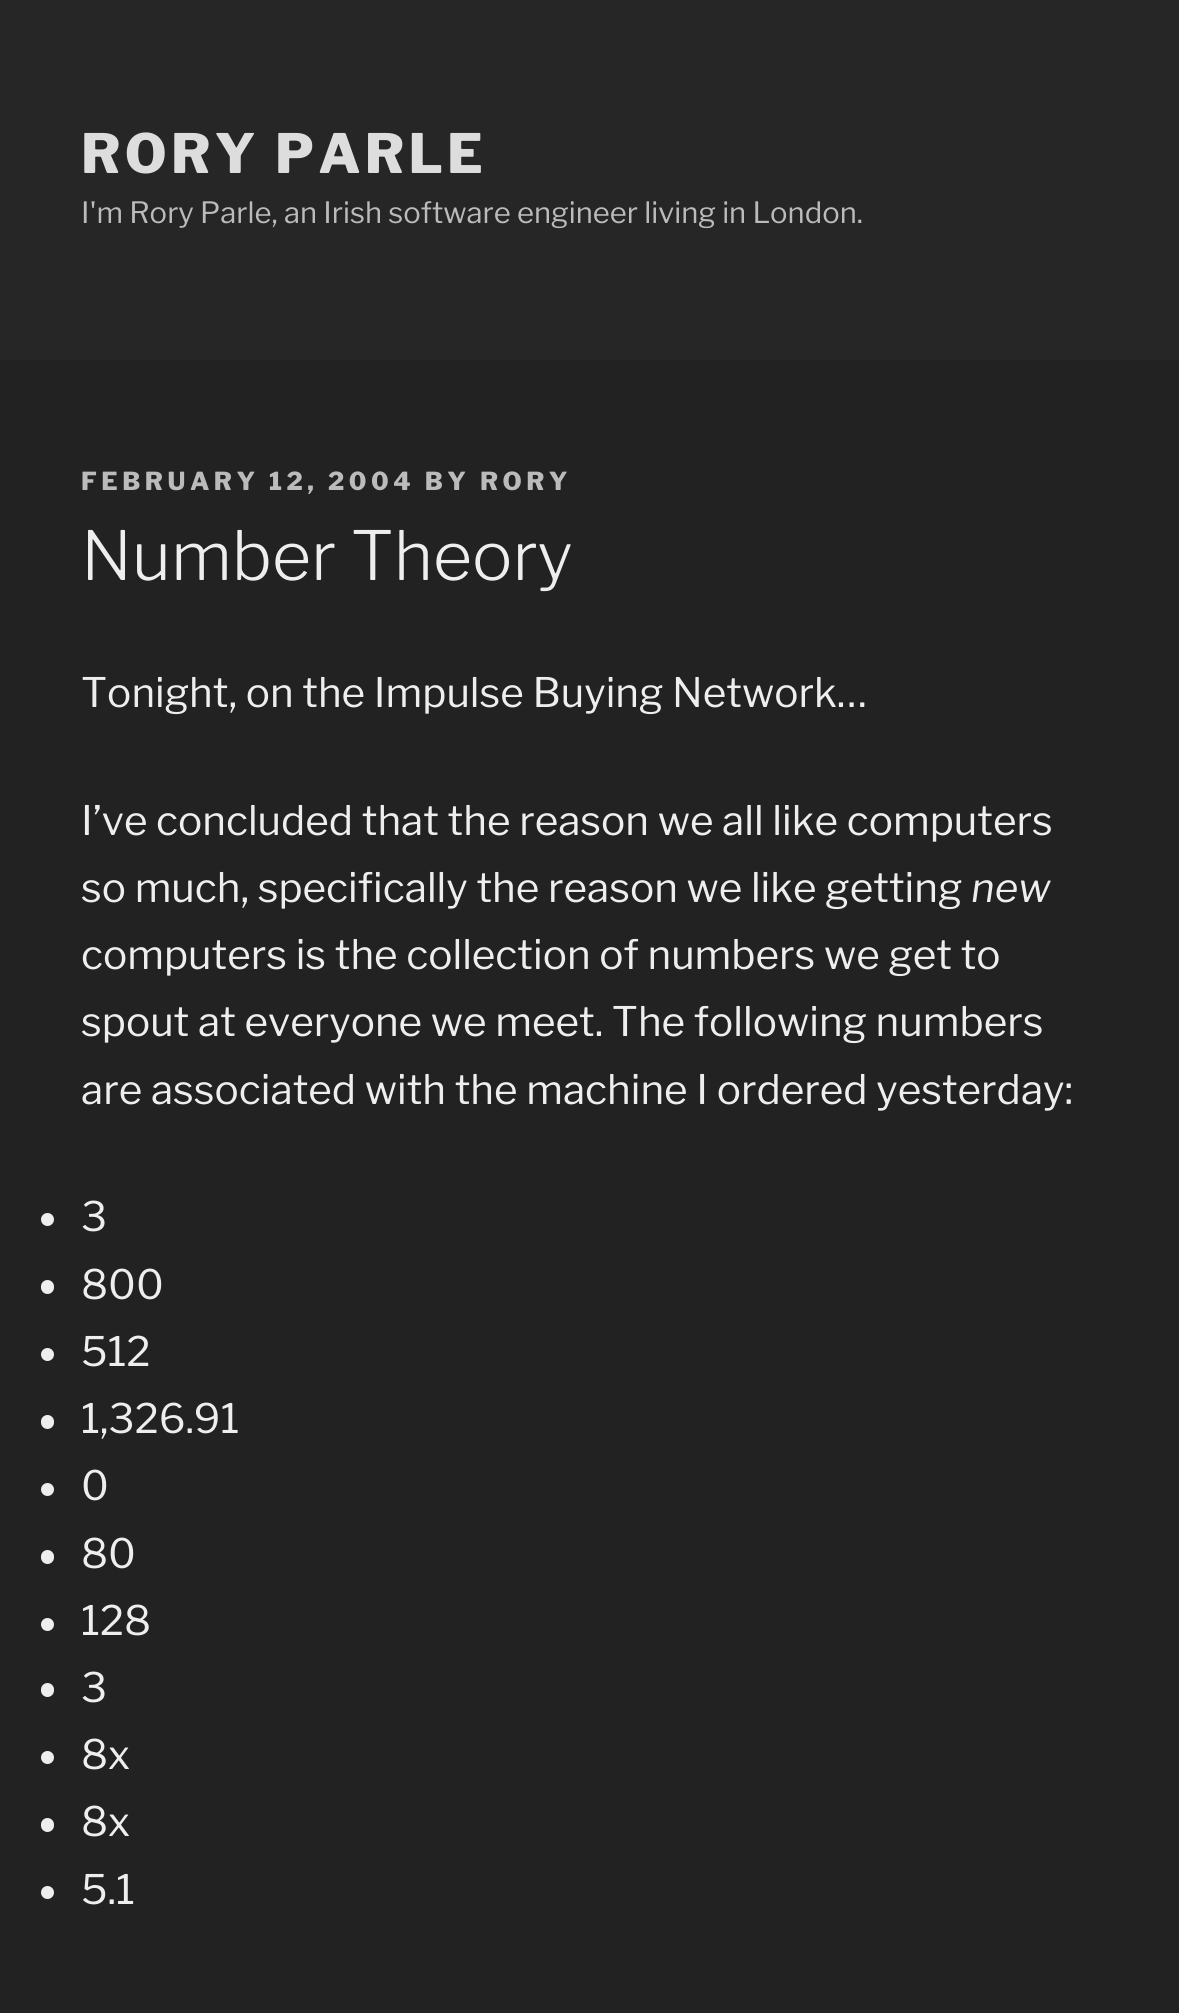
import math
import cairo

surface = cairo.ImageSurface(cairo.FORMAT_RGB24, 1179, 2013)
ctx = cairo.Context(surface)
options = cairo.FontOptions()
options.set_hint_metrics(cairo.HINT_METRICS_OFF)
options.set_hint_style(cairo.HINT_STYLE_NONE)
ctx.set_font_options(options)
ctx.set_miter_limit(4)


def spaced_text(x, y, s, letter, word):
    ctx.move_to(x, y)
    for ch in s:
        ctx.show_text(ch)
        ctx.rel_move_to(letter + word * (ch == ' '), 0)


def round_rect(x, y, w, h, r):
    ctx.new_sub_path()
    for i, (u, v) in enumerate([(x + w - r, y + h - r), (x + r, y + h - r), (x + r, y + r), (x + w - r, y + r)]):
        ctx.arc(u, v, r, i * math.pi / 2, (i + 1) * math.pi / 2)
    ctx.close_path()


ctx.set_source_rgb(0.133, 0.133, 0.133)
ctx.paint()
ctx.set_source_rgb(0.149, 0.149, 0.149)
ctx.rectangle(0, 0, 1179, 360)
ctx.fill()
ctx.select_font_face("Libre Franklin Thin")
ctx.set_font_size(54)
ctx.set_source_rgb(0.867, 0.867, 0.867)
spaced_text(81, 173, "RORY PARLE", 4.25, 0)
ctx.select_font_face("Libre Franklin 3 Thin")
ctx.set_font_size(29.25)
ctx.set_source_rgb(0.733, 0.733, 0.733)
ctx.move_to(81, 223)
ctx.show_text("I'm Rory Parle, an Irish software engineer living in London.")
ctx.select_font_face("Libre Franklin Thin")
ctx.set_font_size(24.75)
spaced_text(81, 490, "FEBRUARY 12, 2004 BY RORY", 4.5, 0)
ctx.select_font_face("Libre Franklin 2 Thin")
ctx.set_font_size(67.5)
ctx.set_source_rgb(0.933, 0.933, 0.933)
ctx.move_to(81, 580)
ctx.show_text("Number Theory")
ctx.select_font_face("Libre Franklin 3 Thin")
ctx.set_font_size(40.5)
ctx.move_to(81, 707)
ctx.show_text("Tonight, on the Impulse Buying Network…")
ctx.move_to(81, 835)
ctx.show_text("I’ve concluded that the reason we all like computers")
ctx.move_to(81, 902)
ctx.show_text("so much, specifically the reason we like getting")
ctx.select_font_face("Libre Franklin Thin", cairo.FONT_SLANT_ITALIC)
ctx.move_to(971, 902)
ctx.show_text("new")
ctx.select_font_face("Libre Franklin 3 Thin")
ctx.move_to(81, 969)
ctx.show_text("computers is the collection of numbers we get to")
ctx.move_to(81, 1036)
ctx.show_text("spout at everyone we meet. The following numbers")
ctx.move_to(81, 1104)
ctx.show_text("are associated with the machine I ordered yesterday:")
ctx.new_path()
ctx.arc(47.5, 1219.5, 6.5, 0, 2 * math.pi)
ctx.fill()
ctx.move_to(81, 1231)
ctx.show_text("3")
round_rect(41, 1280, 13, 14, 6.5)
ctx.fill()
ctx.move_to(81, 1299)
ctx.show_text("800")
ctx.new_path()
ctx.arc(47.5, 1354.5, 6.5, 0, 2 * math.pi)
ctx.fill()
ctx.move_to(81, 1366)
ctx.show_text("512")
round_rect(41, 1415, 13, 14, 6.5)
ctx.fill()
ctx.move_to(81, 1433)
ctx.show_text("1,326.91")
ctx.new_path()
ctx.arc(47.5, 1489.5, 6.5, 0, 2 * math.pi)
ctx.fill()
ctx.move_to(81, 1500)
ctx.show_text("0")
round_rect(41, 1550, 13, 14, 6.5)
ctx.fill()
ctx.move_to(81, 1568)
ctx.show_text("80")
ctx.new_path()
ctx.arc(47.5, 1624.5, 6.5, 0, 2 * math.pi)
ctx.fill()
ctx.move_to(81, 1635)
ctx.show_text("128")
round_rect(41, 1683, 13, 14, 6.5)
ctx.fill()
ctx.move_to(81, 1702)
ctx.show_text("3")
ctx.new_path()
ctx.arc(47.5, 1757.5, 6.5, 0, 2 * math.pi)
ctx.fill()
ctx.move_to(81, 1769)
ctx.show_text("8x")
round_rect(41, 1818, 13, 14, 6.5)
ctx.fill()
ctx.move_to(81, 1836)
ctx.show_text("8x")
ctx.new_path()
ctx.arc(47.5, 1892.5, 6.5, 0, 2 * math.pi)
ctx.fill()
ctx.move_to(81, 1904)
ctx.show_text("5.1")
surface.write_to_png("page.png")
